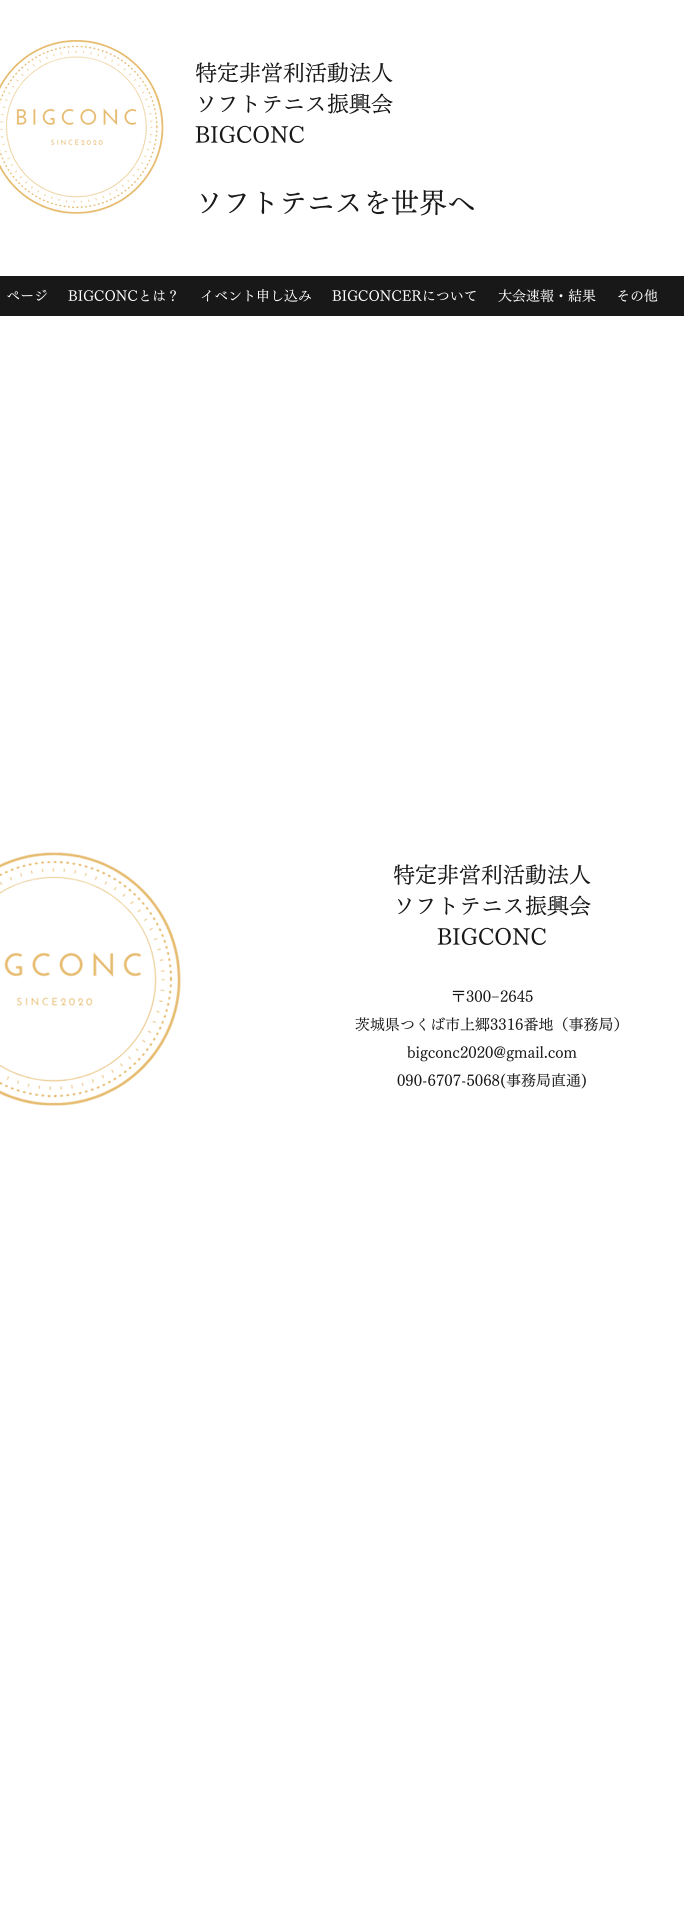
import math
import cairo

surface = cairo.ImageSurface(cairo.FORMAT_RGB24, 684, 1916)
ctx = cairo.Context(surface)
options = cairo.FontOptions()
options.set_hint_metrics(cairo.HINT_METRICS_OFF)
options.set_hint_style(cairo.HINT_STYLE_NONE)
ctx.set_font_options(options)
ctx.set_miter_limit(4)


def picture(path, x, y, w, h):
    ctx.save()
    ctx.set_source_surface(cairo.ImageSurface.create_from_png(path), x, y)
    ctx.rectangle(x, y, w, h)
    ctx.fill()
    ctx.restore()


ctx.set_source_rgb(1, 1, 1)
ctx.paint()
picture("img1.png", 0, 40, 164, 174)
ctx.select_font_face("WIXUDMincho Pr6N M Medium")
ctx.set_font_size(22)
ctx.set_source_rgb(0.094, 0.094, 0.094)
ctx.move_to(195, 81)
ctx.show_text("特定非営利活動法人")
ctx.move_to(195, 112)
ctx.show_text("ソフトテニス振興会")
ctx.move_to(195, 143)
ctx.show_text("BIGCONC")
ctx.set_font_size(28)
ctx.move_to(195, 213)
ctx.show_text("ソフトテニスを世界へ")
ctx.rectangle(0, 276, 684, 40)
ctx.fill()
ctx.set_font_size(14)
ctx.set_source_rgb(1, 1, 1)
ctx.move_to(6, 301)
ctx.show_text("ページ")
ctx.move_to(68, 301)
ctx.show_text("BIGCONCとは？")
ctx.move_to(200, 301)
ctx.show_text("イベント申し込み")
ctx.move_to(332, 301)
ctx.show_text("BIGCONCERについて")
ctx.move_to(498, 301)
ctx.show_text("大会速報・結果")
ctx.move_to(616, 301)
ctx.show_text("その他")
picture("img2.png", 0, 852, 181, 254)
ctx.set_font_size(22)
ctx.set_source_rgb(0.094, 0.094, 0.094)
ctx.move_to(393, 883)
ctx.show_text("特定非営利活動法人")
ctx.move_to(393, 914)
ctx.show_text("ソフトテニス振興会")
ctx.move_to(437, 945)
ctx.show_text("BIGCONC")
ctx.set_font_size(15)
ctx.move_to(451, 1002)
ctx.show_text("〒300")
ctx.select_font_face("Liberation Serif")
ctx.move_to(491, 1002)
ctx.show_text("−")
ctx.select_font_face("WIXUDMincho Pr6N M Medium")
ctx.move_to(500, 1002)
ctx.show_text("2645")
ctx.move_to(355, 1030)
ctx.show_text("茨城県つくば市上郷3316番地（事務局）")
ctx.move_to(407, 1058)
ctx.show_text("bigconc2020@gmail.com")
ctx.move_to(397, 1086)
ctx.show_text("090-6707-5068(事務局直通)")
surface.write_to_png("page.png")
